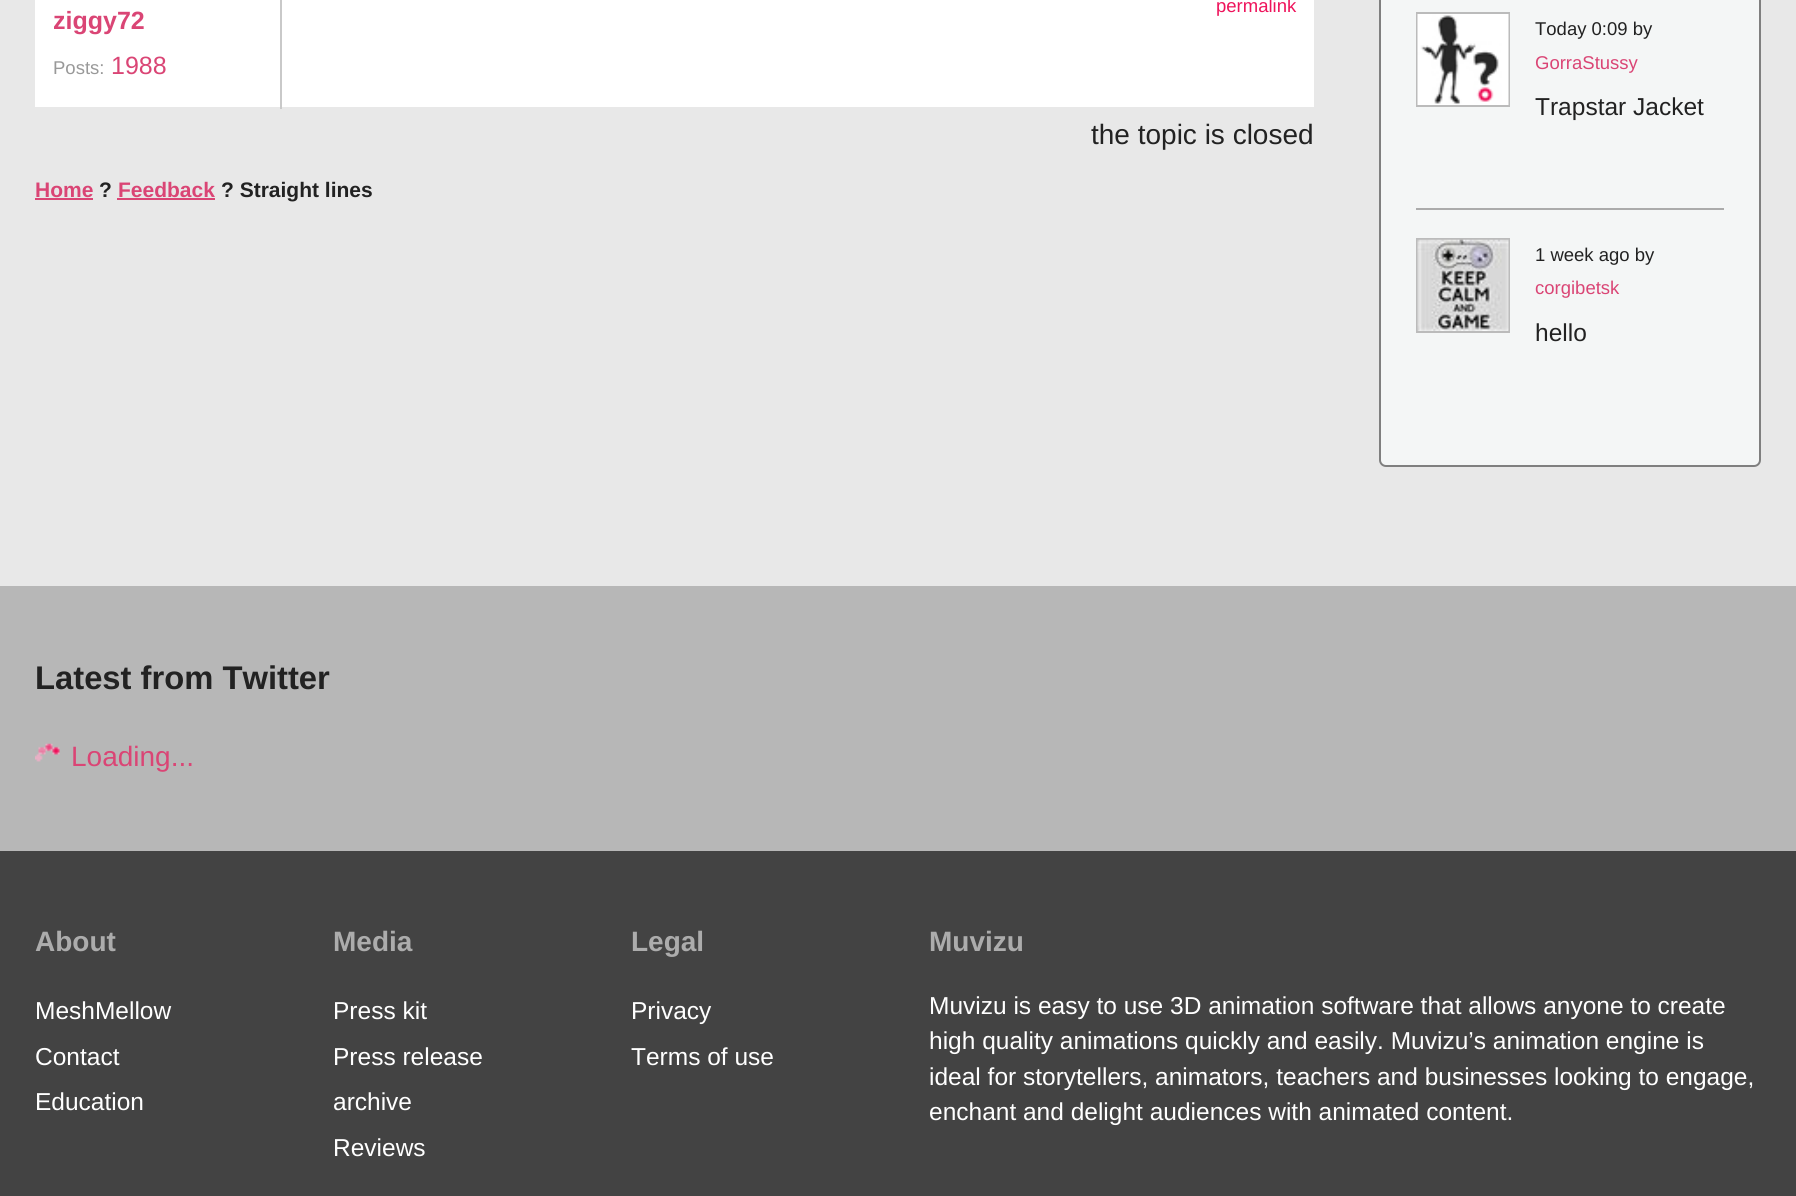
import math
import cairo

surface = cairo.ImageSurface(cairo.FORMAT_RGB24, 1796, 1196)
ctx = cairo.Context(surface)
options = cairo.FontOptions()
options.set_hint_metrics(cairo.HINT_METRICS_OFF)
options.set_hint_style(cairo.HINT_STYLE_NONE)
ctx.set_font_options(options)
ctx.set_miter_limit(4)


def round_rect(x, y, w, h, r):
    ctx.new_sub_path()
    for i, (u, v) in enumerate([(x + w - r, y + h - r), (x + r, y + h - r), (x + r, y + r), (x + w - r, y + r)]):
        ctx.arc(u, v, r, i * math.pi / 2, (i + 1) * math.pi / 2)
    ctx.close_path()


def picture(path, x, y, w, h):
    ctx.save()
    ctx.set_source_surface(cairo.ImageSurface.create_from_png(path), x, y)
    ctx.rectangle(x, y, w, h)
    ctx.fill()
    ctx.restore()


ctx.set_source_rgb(0.91, 0.91, 0.91)
ctx.paint()
ctx.set_source_rgb(1, 1, 1)
ctx.rectangle(35, 0, 1279, 107)
ctx.fill()
ctx.select_font_face("Liberation Sans")
ctx.set_font_size(18.5)
ctx.set_source_rgb(0.933, 0.078, 0.357)
ctx.move_to(1216, 12)
ctx.show_text("permalink")
ctx.set_source_rgb(0.788, 0.788, 0.788)
ctx.rectangle(280, 0, 2, 109)
ctx.fill()
ctx.select_font_face("Liberation Sans", cairo.FONT_SLANT_NORMAL, cairo.FONT_WEIGHT_BOLD)
ctx.set_font_size(25)
ctx.set_source_rgb(0.855, 0.271, 0.459)
ctx.move_to(53, 29)
ctx.show_text("ziggy72")
ctx.select_font_face("Liberation Sans")
ctx.set_font_size(18.5)
ctx.set_source_rgb(0.6, 0.6, 0.6)
ctx.move_to(53, 74)
ctx.show_text("Posts:")
ctx.set_font_size(25)
ctx.set_source_rgb(0.855, 0.271, 0.459)
ctx.move_to(111, 74)
ctx.show_text("1988")
ctx.set_font_size(28)
ctx.set_source_rgb(0.133, 0.133, 0.133)
ctx.move_to(1091, 144)
ctx.show_text("the topic is closed")
ctx.select_font_face("Liberation Sans", cairo.FONT_SLANT_NORMAL, cairo.FONT_WEIGHT_BOLD)
ctx.set_font_size(21)
ctx.set_source_rgb(0.855, 0.271, 0.459)
ctx.move_to(35, 197)
ctx.show_text("Home")
ctx.rectangle(35, 198, 58, 2)
ctx.fill()
ctx.set_source_rgb(0.133, 0.133, 0.133)
ctx.move_to(99, 197)
ctx.show_text("?")
ctx.set_source_rgb(0.855, 0.271, 0.459)
ctx.move_to(118, 197)
ctx.show_text("Feedback")
ctx.rectangle(117, 198, 98, 2)
ctx.fill()
ctx.set_source_rgb(0.133, 0.133, 0.133)
ctx.move_to(221, 197)
ctx.show_text("? Straight lines")
ctx.set_source_rgb(0.957, 0.961, 0.961)
round_rect(1380, -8, 380, 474, 6)
ctx.fill_preserve()
ctx.set_source_rgb(0.498, 0.498, 0.498)
ctx.stroke()
ctx.set_source_rgb(0.671, 0.671, 0.671)
ctx.rectangle(1416, 208, 308, 2)
ctx.fill()
ctx.rectangle(1417, 13, 92, 93)
ctx.set_source_rgb(0.733, 0.733, 0.733)
ctx.stroke()
picture("img1.png", 1417, 14, 92, 91)
ctx.select_font_face("Liberation Sans")
ctx.set_font_size(18.5)
ctx.set_source_rgb(0.133, 0.133, 0.133)
ctx.move_to(1535, 35)
ctx.show_text("Today 0:09 by")
ctx.set_source_rgb(0.855, 0.271, 0.459)
ctx.move_to(1535, 69)
ctx.show_text("GorraStussy")
ctx.set_font_size(24.5)
ctx.set_source_rgb(0.133, 0.133, 0.133)
ctx.move_to(1535, 115)
ctx.show_text("Trapstar Jacket")
ctx.rectangle(1417, 239, 92, 93)
ctx.set_source_rgb(0.733, 0.733, 0.733)
ctx.stroke()
picture("img2.png", 1417, 239, 92, 92)
ctx.set_font_size(18.5)
ctx.set_source_rgb(0.133, 0.133, 0.133)
ctx.move_to(1535, 261)
ctx.show_text("1 week ago by")
ctx.set_source_rgb(0.855, 0.271, 0.459)
ctx.move_to(1535, 294)
ctx.show_text("corgibetsk")
ctx.set_font_size(24.5)
ctx.set_source_rgb(0.133, 0.133, 0.133)
ctx.move_to(1535, 341)
ctx.show_text("hello")
ctx.set_source_rgb(0.718, 0.718, 0.718)
ctx.rectangle(0, 586, 1796, 265)
ctx.fill()
ctx.select_font_face("Liberation Sans", cairo.FONT_SLANT_NORMAL, cairo.FONT_WEIGHT_BOLD)
ctx.set_font_size(32.75)
ctx.set_source_rgb(0.133, 0.133, 0.133)
ctx.move_to(35, 689)
ctx.show_text("Latest from Twitter")
picture("img3.png", 35, 743, 25, 19)
ctx.select_font_face("Liberation Sans")
ctx.set_font_size(28)
ctx.set_source_rgb(0.855, 0.271, 0.459)
ctx.move_to(71, 766)
ctx.show_text("Loading...")
ctx.set_source_rgb(0.263, 0.263, 0.263)
ctx.rectangle(0, 851, 1796, 345)
ctx.fill()
ctx.select_font_face("Liberation Sans", cairo.FONT_SLANT_NORMAL, cairo.FONT_WEIGHT_BOLD)
ctx.set_source_rgb(0.675, 0.675, 0.675)
ctx.move_to(35, 951)
ctx.show_text("About")
ctx.select_font_face("Liberation Sans")
ctx.set_font_size(24.5)
ctx.set_source_rgb(1, 1, 1)
ctx.move_to(35, 1019)
ctx.show_text("MeshMellow")
ctx.move_to(35, 1065)
ctx.show_text("Contact")
ctx.move_to(35, 1110)
ctx.show_text("Education")
ctx.select_font_face("Liberation Sans", cairo.FONT_SLANT_NORMAL, cairo.FONT_WEIGHT_BOLD)
ctx.set_font_size(28)
ctx.set_source_rgb(0.675, 0.675, 0.675)
ctx.move_to(333, 951)
ctx.show_text("Media")
ctx.select_font_face("Liberation Sans")
ctx.set_font_size(24.5)
ctx.set_source_rgb(1, 1, 1)
ctx.move_to(333, 1019)
ctx.show_text("Press kit")
ctx.move_to(333, 1065)
ctx.show_text("Press release")
ctx.move_to(333, 1110)
ctx.show_text("archive")
ctx.move_to(333, 1156)
ctx.show_text("Reviews")
ctx.select_font_face("Liberation Sans", cairo.FONT_SLANT_NORMAL, cairo.FONT_WEIGHT_BOLD)
ctx.set_font_size(28)
ctx.set_source_rgb(0.675, 0.675, 0.675)
ctx.move_to(631, 951)
ctx.show_text("Legal")
ctx.select_font_face("Liberation Sans")
ctx.set_font_size(24.5)
ctx.set_source_rgb(1, 1, 1)
ctx.move_to(631, 1019)
ctx.show_text("Privacy")
ctx.move_to(631, 1065)
ctx.show_text("Terms of use")
ctx.select_font_face("Liberation Sans", cairo.FONT_SLANT_NORMAL, cairo.FONT_WEIGHT_BOLD)
ctx.set_font_size(28)
ctx.set_source_rgb(0.675, 0.675, 0.675)
ctx.move_to(929, 951)
ctx.show_text("Muvizu")
ctx.select_font_face("Liberation Sans")
ctx.set_font_size(24.5)
ctx.set_source_rgb(1, 1, 1)
ctx.move_to(929, 1014)
ctx.show_text("Muvizu is easy to use 3D animation software that allows anyone to create")
ctx.move_to(929, 1049)
ctx.show_text("high quality animations quickly and easily. Muvizu’s animation engine is")
ctx.move_to(929, 1085)
ctx.show_text("ideal for storytellers, animators, teachers and businesses looking to engage,")
ctx.move_to(929, 1120)
ctx.show_text("enchant and delight audiences with animated content.")
surface.write_to_png("page.png")
